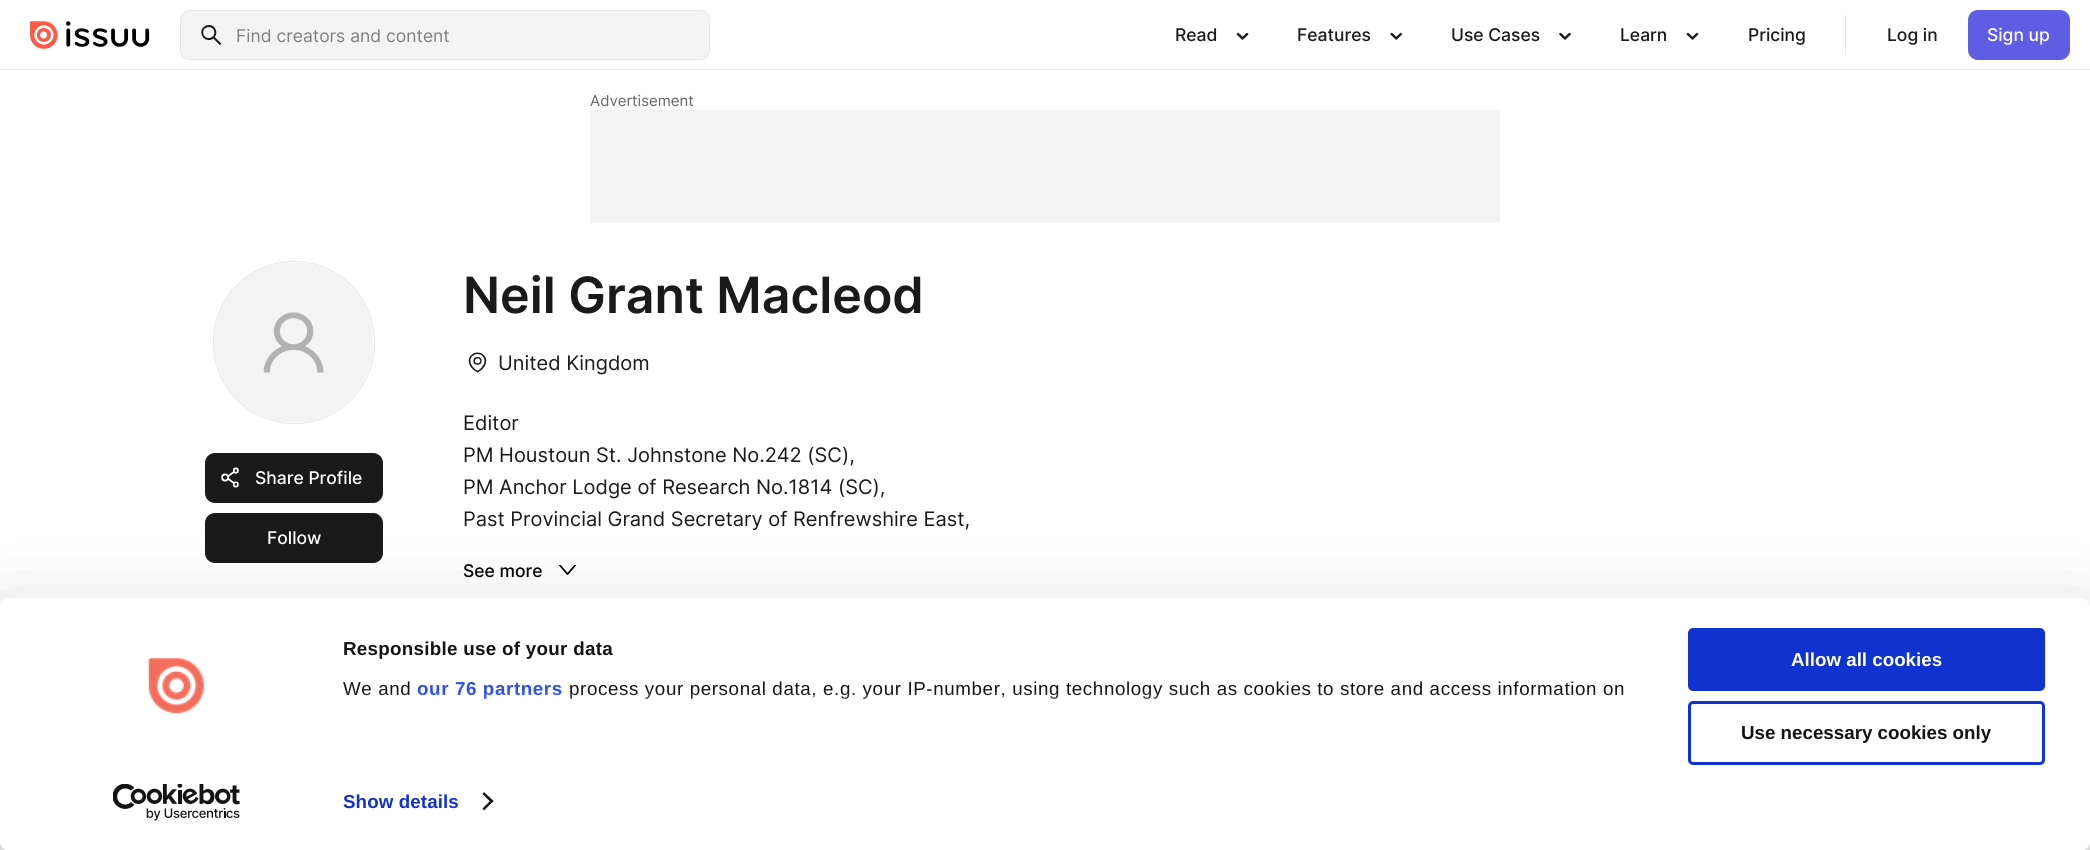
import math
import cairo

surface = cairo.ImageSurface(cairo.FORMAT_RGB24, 2090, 850)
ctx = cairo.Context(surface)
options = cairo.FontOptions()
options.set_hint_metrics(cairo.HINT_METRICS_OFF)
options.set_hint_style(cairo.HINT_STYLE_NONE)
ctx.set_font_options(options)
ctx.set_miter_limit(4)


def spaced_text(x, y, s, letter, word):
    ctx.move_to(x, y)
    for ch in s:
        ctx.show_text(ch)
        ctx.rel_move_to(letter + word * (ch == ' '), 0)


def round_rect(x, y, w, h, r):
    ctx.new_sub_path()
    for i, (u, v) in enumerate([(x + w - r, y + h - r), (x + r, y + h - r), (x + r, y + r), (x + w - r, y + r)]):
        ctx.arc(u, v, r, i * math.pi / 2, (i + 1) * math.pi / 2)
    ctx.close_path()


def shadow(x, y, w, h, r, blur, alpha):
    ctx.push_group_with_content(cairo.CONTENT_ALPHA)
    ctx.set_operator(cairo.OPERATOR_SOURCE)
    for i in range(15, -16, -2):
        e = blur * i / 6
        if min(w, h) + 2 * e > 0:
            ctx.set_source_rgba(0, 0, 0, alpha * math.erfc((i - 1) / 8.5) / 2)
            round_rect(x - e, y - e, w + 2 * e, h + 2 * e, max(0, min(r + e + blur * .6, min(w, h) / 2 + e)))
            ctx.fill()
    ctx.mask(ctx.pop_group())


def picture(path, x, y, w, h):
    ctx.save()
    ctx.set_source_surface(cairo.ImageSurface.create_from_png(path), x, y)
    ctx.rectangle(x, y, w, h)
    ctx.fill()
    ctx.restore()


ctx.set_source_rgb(1, 1, 1)
ctx.paint()
ctx.set_source_rgb(0.898, 0.898, 0.898)
ctx.rectangle(0, 69, 2090, 1)
ctx.fill()
picture("img1.png", 30, 21, 120, 28)
ctx.set_source_rgb(0.953, 0.953, 0.953)
round_rect(180.5, 10.5, 529, 49, 9.5)
ctx.fill_preserve()
ctx.set_source_rgb(0.898, 0.898, 0.898)
ctx.set_line_width(1)
ctx.stroke()
picture("img2.png", 201, 25, 21, 20)
ctx.select_font_face("Inter")
ctx.set_font_size(17.5)
ctx.set_source_rgb(0.502, 0.502, 0.502)
ctx.move_to(236, 42)
ctx.show_text("Find creators and content")
ctx.select_font_face("Inter Medium")
ctx.set_source_rgb(0.102, 0.102, 0.102)
ctx.move_to(1175, 41)
ctx.show_text("Read")
picture("img3.png", 1236, 32, 13, 8)
ctx.move_to(1297, 41)
ctx.show_text("Features")
picture("img4.png", 1390, 32, 13, 8)
ctx.move_to(1451, 41)
ctx.show_text("Use Cases")
picture("img5.png", 1559, 32, 12, 8)
ctx.move_to(1620, 41)
ctx.show_text("Learn")
picture("img3.png", 1686, 32, 13, 8)
ctx.move_to(1748, 41)
ctx.show_text("Pricing")
ctx.set_source_rgb(0.898, 0.898, 0.898)
ctx.rectangle(1845, 15, 1, 40)
ctx.fill()
ctx.set_source_rgb(0.102, 0.102, 0.102)
ctx.move_to(1887, 41)
ctx.show_text("Log in")
ctx.set_source_rgb(0.373, 0.365, 0.894)
round_rect(1968, 10, 102, 50, 10)
ctx.fill()
ctx.set_source_rgb(1, 1, 1)
ctx.move_to(1987, 41)
ctx.show_text("Sign up")
ctx.set_source_rgb(0.953, 0.953, 0.953)
ctx.rectangle(590, 110, 910, 113)
ctx.fill()
ctx.select_font_face("Inter")
ctx.set_font_size(15)
ctx.set_source_rgb(0.4, 0.4, 0.4)
ctx.move_to(590, 106)
ctx.show_text("Advertisement")
round_rect(213.5, 261.5, 161, 162, 80.5)
ctx.set_source_rgb(0.898, 0.898, 0.898)
ctx.stroke()
picture("img6.png", 214, 263, 159, 159)
ctx.set_source_rgb(0.102, 0.102, 0.102)
round_rect(205, 453, 178, 50, 10)
ctx.fill()
picture("img7.png", 221, 467, 18, 21)
ctx.select_font_face("Inter Medium")
ctx.set_font_size(17.5)
ctx.set_source_rgb(1, 1, 1)
ctx.move_to(255, 484)
ctx.show_text("Share Profile")
ctx.set_source_rgb(0.102, 0.102, 0.102)
round_rect(205, 513, 178, 50, 10)
ctx.fill()
ctx.set_source_rgb(1, 1, 1)
ctx.move_to(267, 544)
ctx.show_text("Follow")
ctx.select_font_face("Inter SemiBold")
ctx.set_font_size(50)
ctx.set_source_rgb(0.102, 0.102, 0.102)
ctx.move_to(463, 313)
ctx.show_text("Neil Grant Macleod")
picture("img8.png", 468, 352, 19, 21)
ctx.select_font_face("Inter")
ctx.set_font_size(20)
ctx.move_to(498, 370)
ctx.show_text("United Kingdom")
ctx.move_to(463, 430)
ctx.show_text("Editor")
ctx.move_to(463, 462)
ctx.show_text("PM Houstoun St. Johnstone No.242 (SC),")
ctx.move_to(463, 494)
ctx.show_text("PM Anchor Lodge of Research No.1814 (SC),")
ctx.move_to(463, 526)
ctx.show_text("Past Provincial Grand Secretary of Renfrewshire East,")
ctx.select_font_face("Inter Medium")
ctx.set_font_size(17.5)
ctx.set_source_rgb(0, 0, 0)
ctx.move_to(463, 577)
ctx.show_text("See more")
picture("img9.png", 558, 565, 19, 10)
ctx.set_source_rgb(0, 0, 0)
shadow(0, 635, 2090, 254, 10, 44, 0.3)
ctx.set_source_rgb(1, 1, 1)
round_rect(0, 598, 2090, 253, 10)
ctx.fill()
picture("img10.png", 148, 657, 57, 57)
picture("img11.png", 113, 784, 127, 37)
ctx.select_font_face("Liberation Sans", cairo.FONT_SLANT_NORMAL, cairo.FONT_WEIGHT_BOLD)
ctx.set_font_size(18.75)
ctx.set_source_rgb(0.078, 0.078, 0.078)
spaced_text(343, 655, "Responsible use of your data", 0.3, 0)
ctx.select_font_face("Liberation Sans")
spaced_text(343, 695, "We and", 0.62, 0)
ctx.select_font_face("Liberation Sans", cairo.FONT_SLANT_NORMAL, cairo.FONT_WEIGHT_BOLD)
ctx.set_source_rgb(0.165, 0.306, 0.937)
spaced_text(417, 695, "our 76 partners", 0.62, 0)
ctx.select_font_face("Liberation Sans")
ctx.set_source_rgb(0.078, 0.078, 0.078)
spaced_text(569, 695, "process your personal data, e.g. your IP-number, using technology such as cookies to store and access information on", 0.62, 0)
gradient = cairo.LinearGradient(985, 754, 985, 691)
gradient.add_color_stop_rgba(0, 1, 1, 1, 1)
gradient.add_color_stop_rgba(0.5, 1, 1, 1, 0.8)
gradient.add_color_stop_rgba(1, 1, 1, 1, 0)
ctx.set_source(gradient)
ctx.rectangle(346, 692, 1278, 7)
ctx.fill()
ctx.select_font_face("Liberation Sans", cairo.FONT_SLANT_NORMAL, cairo.FONT_WEIGHT_BOLD)
ctx.set_source_rgb(0.063, 0.196, 0.812)
spaced_text(343, 808, "Show details", 0.1, 0)
ctx.set_source_rgb(0.078, 0.078, 0.078)
ctx.new_path()
ctx.move_to(484, 792)
ctx.line_to(493.5, 801)
ctx.line_to(491.5, 803)
ctx.line_to(482.5, 794)
ctx.close_path()
ctx.fill()
ctx.new_path()
ctx.move_to(491.5, 799.5)
ctx.line_to(493.5, 801)
ctx.line_to(484, 810.5)
ctx.line_to(482.5, 808.5)
ctx.close_path()
ctx.fill()
ctx.set_source_rgb(0.063, 0.196, 0.812)
round_rect(1689.5, 629.5, 354, 60, 3.5)
ctx.fill_preserve()
ctx.set_line_width(3)
ctx.stroke()
ctx.set_source_rgb(1, 1, 1)
ctx.move_to(1791, 666)
ctx.show_text("Allow all cookies")
round_rect(1689.5, 702.5, 354, 61, 3.5)
ctx.set_source_rgb(0.063, 0.196, 0.812)
ctx.stroke()
ctx.set_source_rgb(0.078, 0.078, 0.078)
ctx.move_to(1741, 739)
ctx.show_text("Use necessary cookies only")
surface.write_to_png("page.png")
